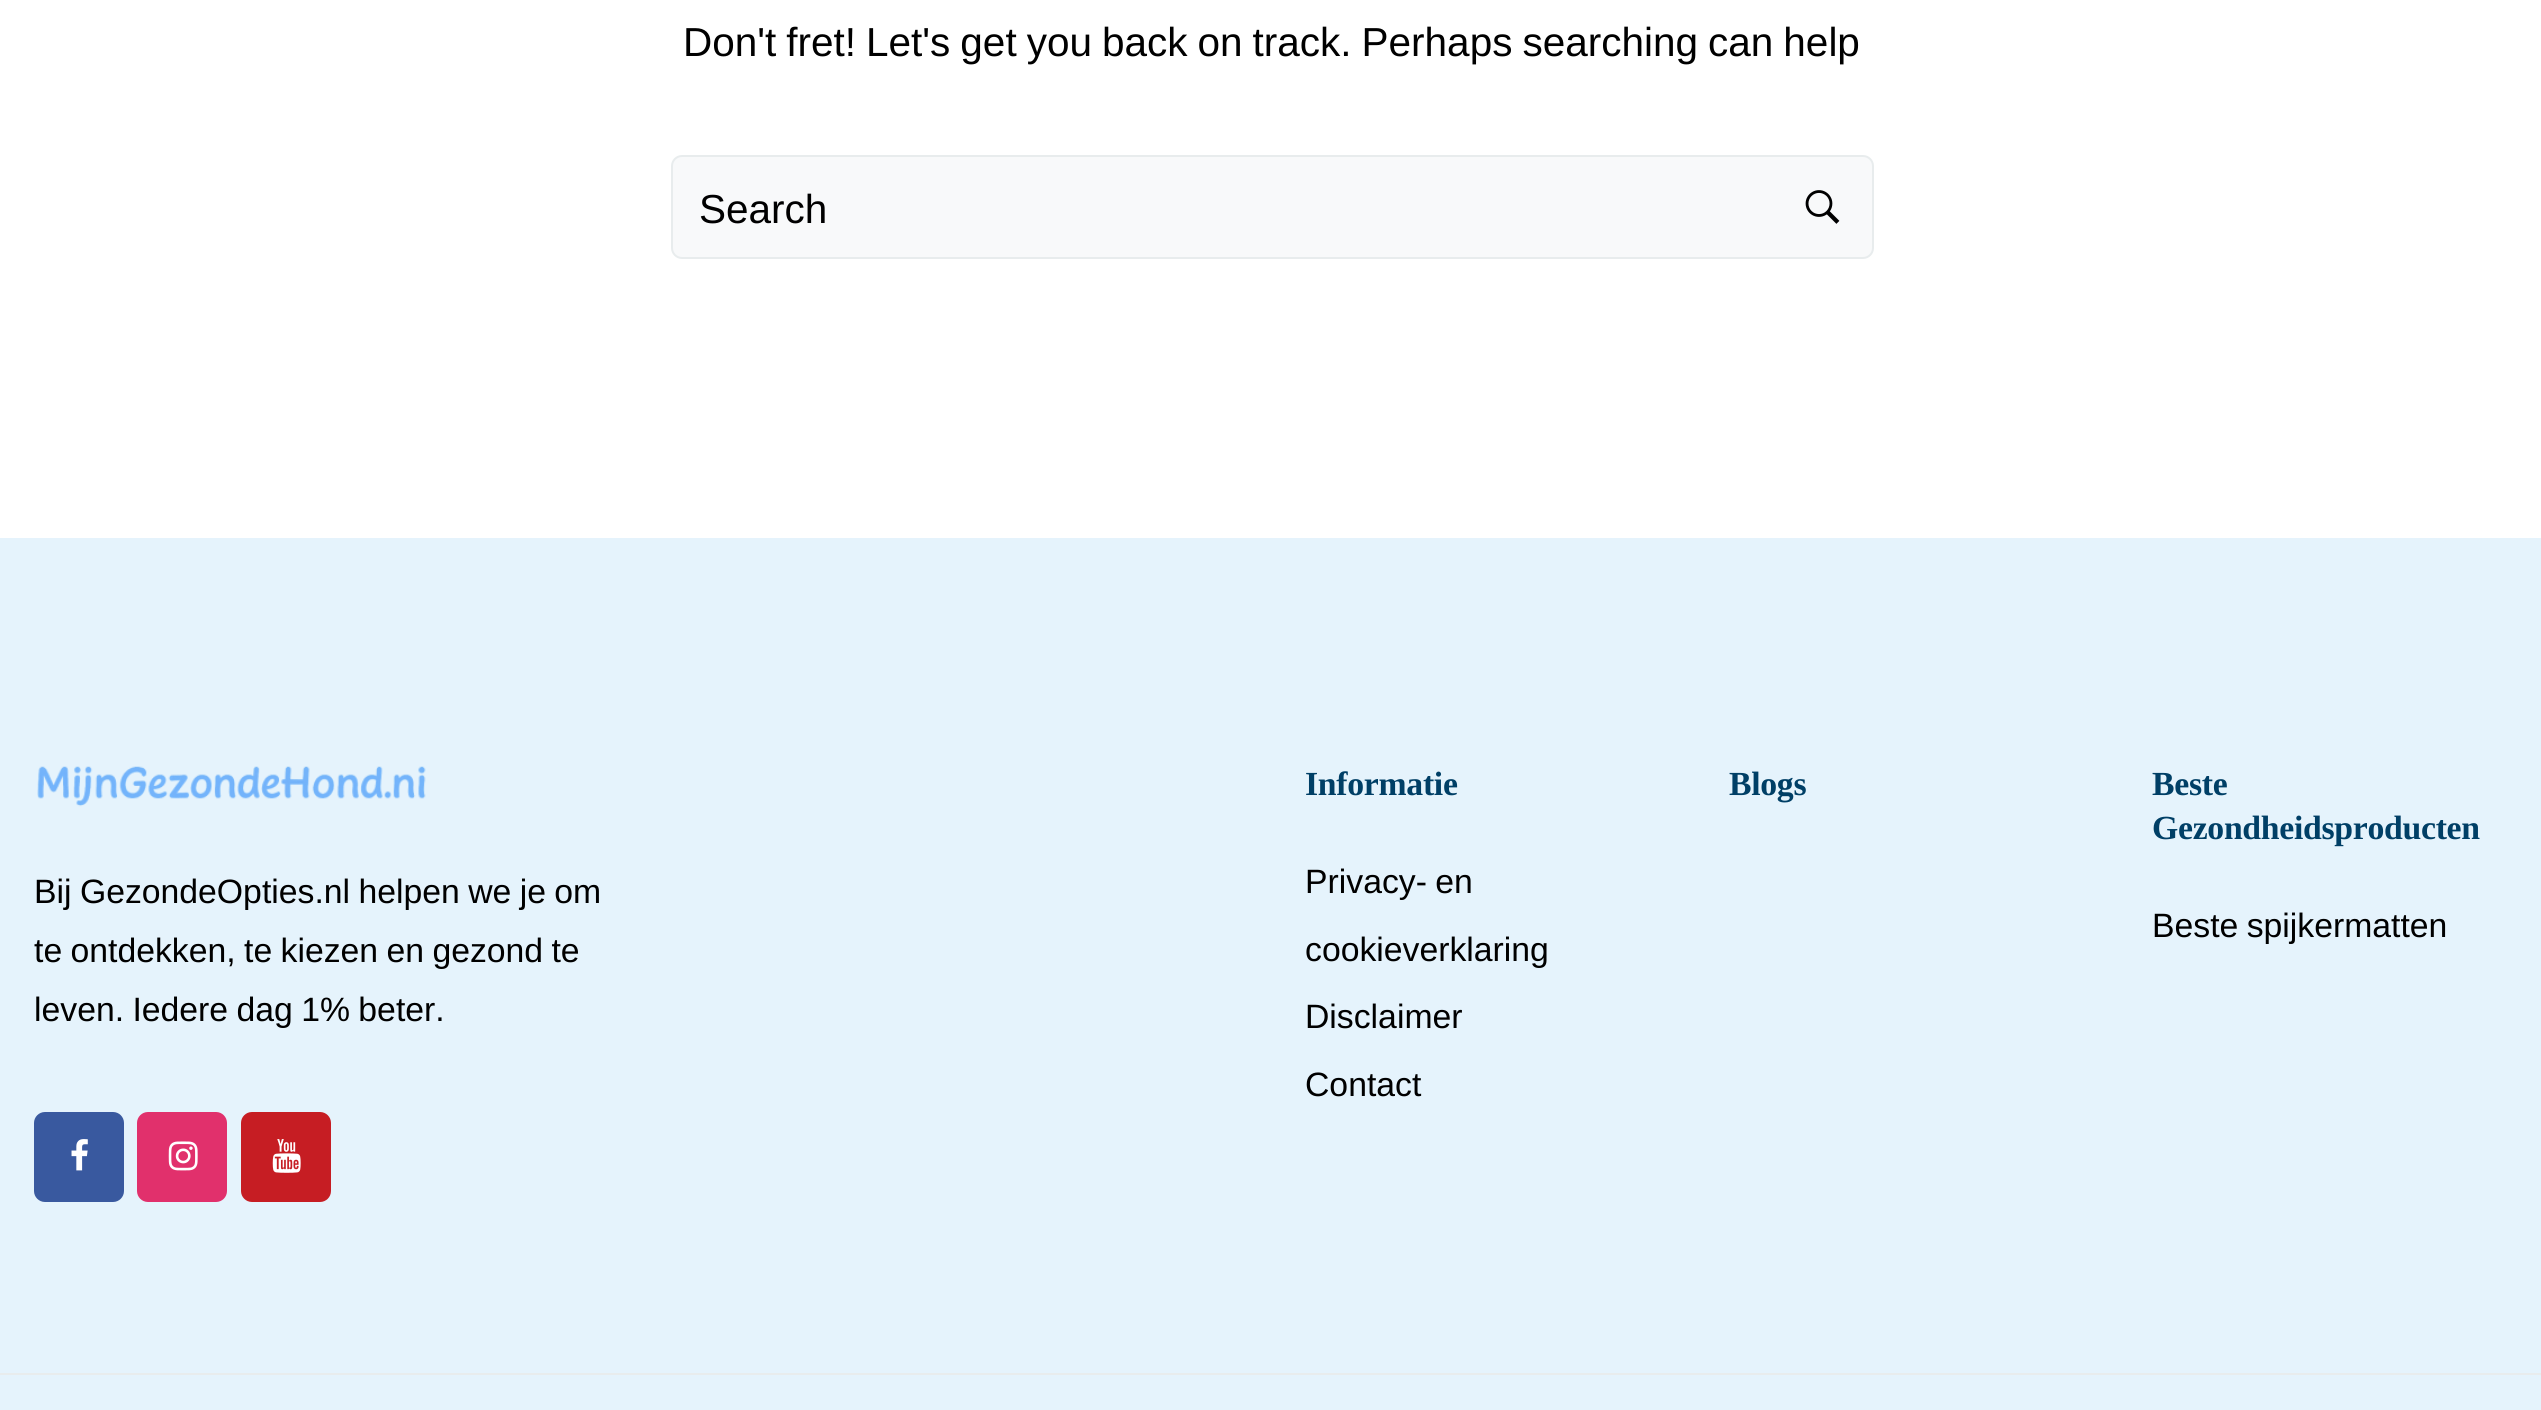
import math
import cairo

surface = cairo.ImageSurface(cairo.FORMAT_RGB24, 2541, 1410)
ctx = cairo.Context(surface)
options = cairo.FontOptions()
options.set_hint_metrics(cairo.HINT_METRICS_OFF)
options.set_hint_style(cairo.HINT_STYLE_NONE)
ctx.set_font_options(options)
ctx.set_miter_limit(4)


def spaced_text(x, y, s, letter, word):
    ctx.move_to(x, y)
    for ch in s:
        ctx.show_text(ch)
        ctx.rel_move_to(letter + word * (ch == ' '), 0)


def round_rect(x, y, w, h, r):
    ctx.new_sub_path()
    for i, (u, v) in enumerate([(x + w - r, y + h - r), (x + r, y + h - r), (x + r, y + r), (x + w - r, y + r)]):
        ctx.arc(u, v, r, i * math.pi / 2, (i + 1) * math.pi / 2)
    ctx.close_path()


def picture(path, x, y, w, h):
    ctx.save()
    ctx.set_source_surface(cairo.ImageSurface.create_from_png(path), x, y)
    ctx.rectangle(x, y, w, h)
    ctx.fill()
    ctx.restore()


ctx.set_source_rgb(1, 1, 1)
ctx.paint()
ctx.select_font_face("Liberation Sans")
ctx.set_font_size(40.5)
ctx.set_source_rgb(0, 0, 0)
spaced_text(683, 56, "Don't fret! Let's get you back on track. Perhaps searching can help", 0, -1.25)
ctx.set_source_rgb(0.969, 0.976, 0.98)
round_rect(672, 156, 1201, 102, 10)
ctx.fill_preserve()
ctx.set_source_rgb(0.91, 0.925, 0.929)
ctx.stroke()
ctx.set_source_rgb(0, 0, 0)
ctx.move_to(699, 223)
ctx.show_text("Search")
picture("img1.png", 1805, 190, 35, 34)
ctx.set_source_rgb(0.898, 0.953, 0.988)
ctx.rectangle(0, 538, 2541, 872)
ctx.fill()
picture("img2.png", 37, 766, 389, 41)
ctx.set_font_size(33.75)
ctx.set_source_rgb(0, 0, 0)
spaced_text(34, 903, "Bij GezondeOpties.nl helpen we je om", 0, -1)
spaced_text(34, 962, "te ontdekken, te kiezen en gezond te", 0, -1)
spaced_text(34, 1021, "leven. Iedere dag 1% beter.", 0, -1)
ctx.set_source_rgb(0.224, 0.349, 0.624)
round_rect(34, 1112, 90, 90, 11)
ctx.fill()
picture("img3.png", 71, 1139, 17, 32)
ctx.set_source_rgb(0.882, 0.188, 0.424)
round_rect(137, 1112, 90, 90, 11)
ctx.fill()
picture("img4.png", 168, 1141, 30, 30)
ctx.set_source_rgb(0.776, 0.114, 0.137)
round_rect(241, 1112, 90, 90, 11)
ctx.fill()
picture("img5.png", 272, 1139, 29, 34)
ctx.select_font_face("Liberation Serif", cairo.FONT_SLANT_NORMAL, cairo.FONT_WEIGHT_BOLD)
ctx.set_source_rgb(0, 0.247, 0.4)
spaced_text(1305, 795, "Informatie", -0.3, 0)
ctx.select_font_face("Liberation Sans")
ctx.set_source_rgb(0, 0, 0)
spaced_text(1305, 893, "Privacy- en", 0, -1)
ctx.move_to(1305, 961)
ctx.show_text("cookieverklaring")
ctx.move_to(1305, 1028)
ctx.show_text("Disclaimer")
ctx.move_to(1305, 1096)
ctx.show_text("Contact")
ctx.select_font_face("Liberation Serif", cairo.FONT_SLANT_NORMAL, cairo.FONT_WEIGHT_BOLD)
ctx.set_source_rgb(0, 0.247, 0.4)
spaced_text(1729, 795, "Blogs", -0.3, 0)
spaced_text(2152, 795, "Beste", -0.3, 0)
spaced_text(2152, 839, "Gezondheidsproducten", -0.3, 0)
ctx.select_font_face("Liberation Sans")
ctx.set_source_rgb(0, 0, 0)
spaced_text(2152, 937, "Beste spijkermatten", 0, -1)
ctx.set_source_rgb(0.91, 0.925, 0.929)
ctx.rectangle(0, 1373, 2541, 2)
ctx.fill()
surface.write_to_png("page.png")
